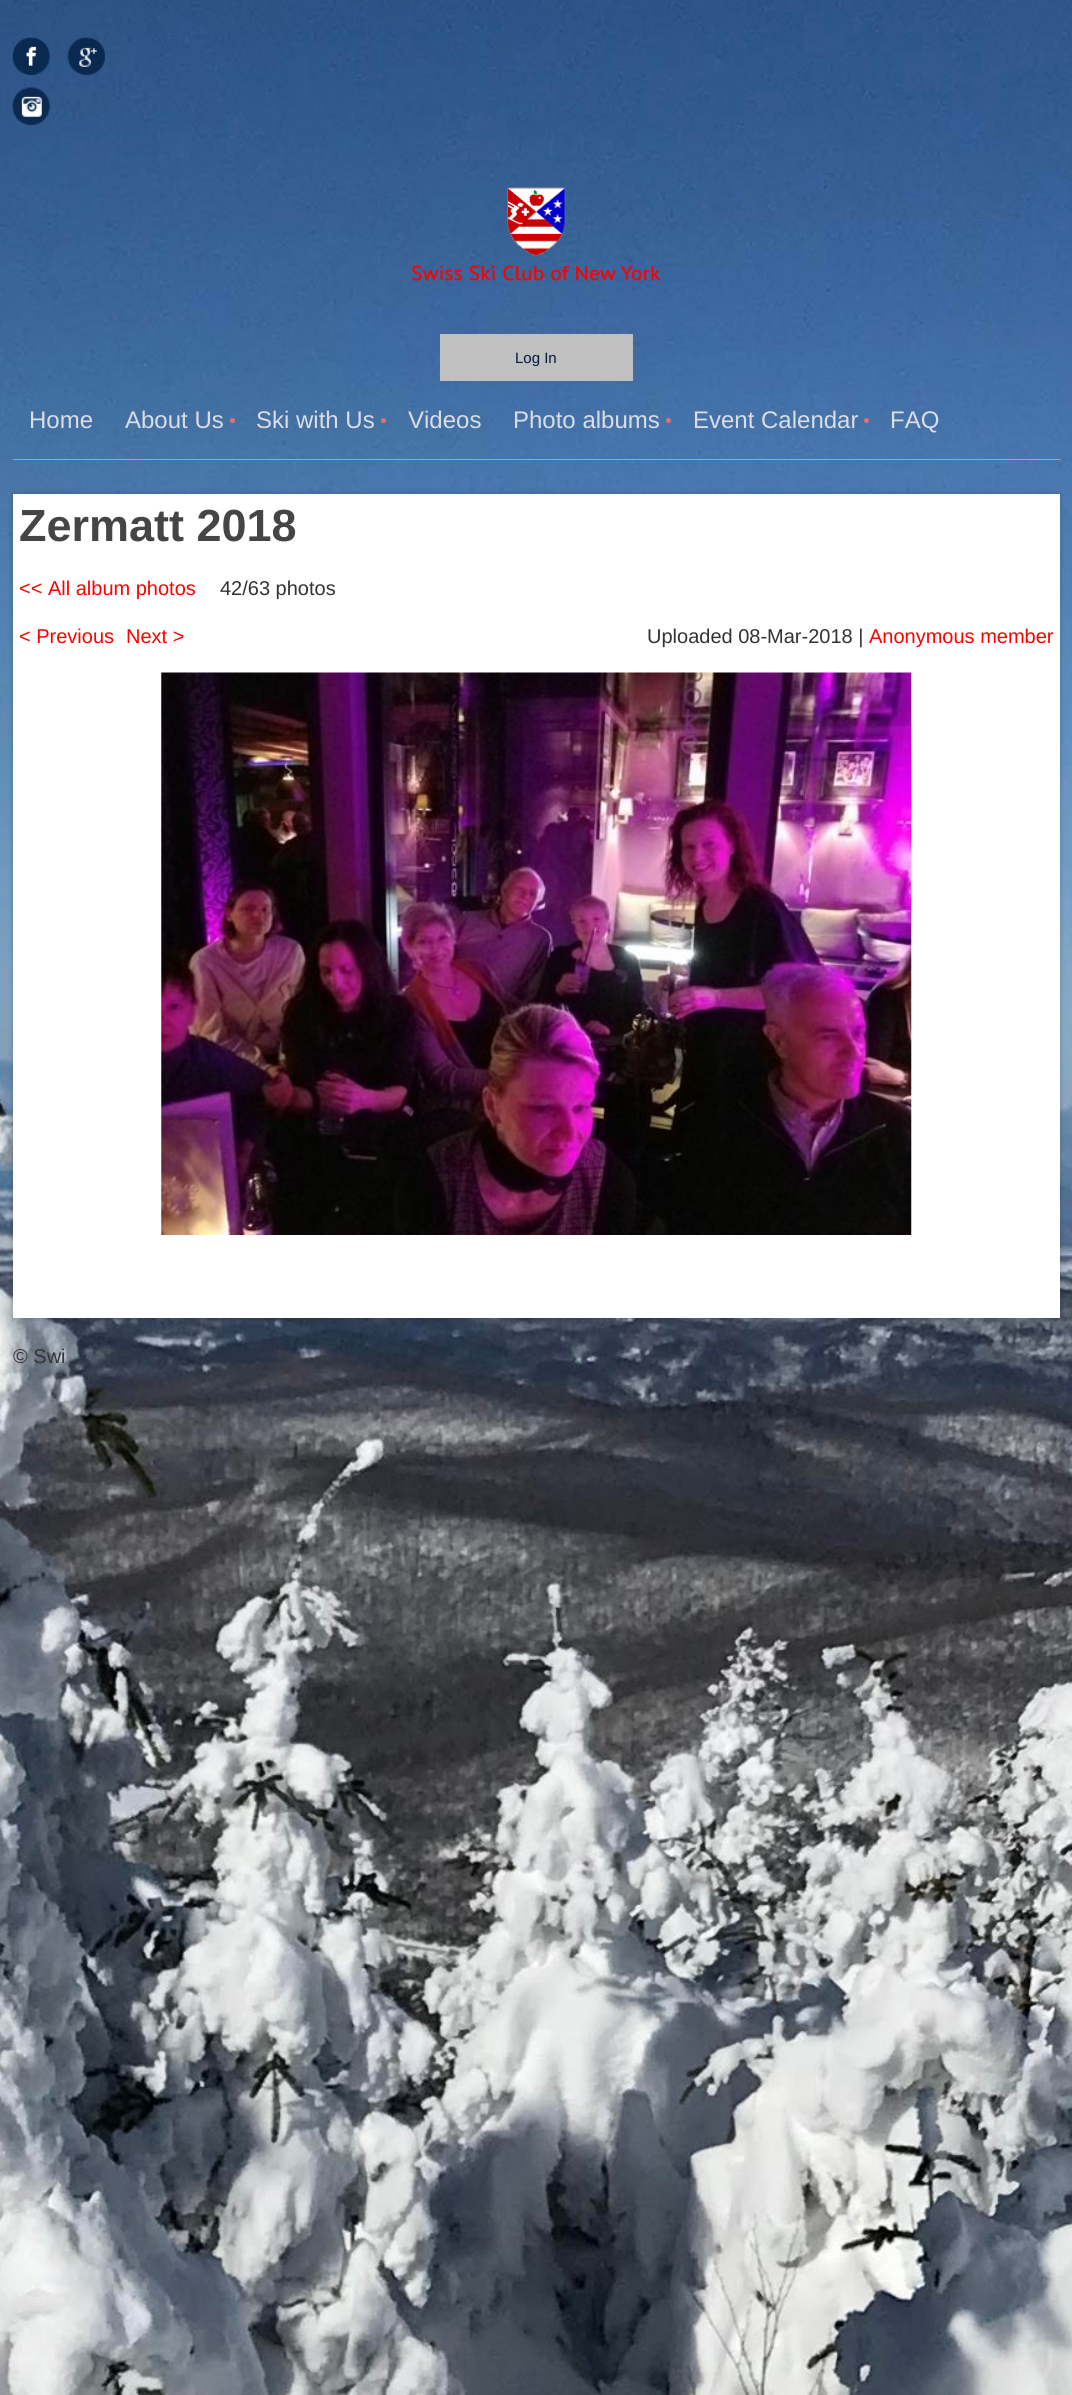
import math
import cairo

surface = cairo.ImageSurface(cairo.FORMAT_RGB24, 1072, 2395)
ctx = cairo.Context(surface)
options = cairo.FontOptions()
options.set_hint_metrics(cairo.HINT_METRICS_OFF)
options.set_hint_style(cairo.HINT_STYLE_NONE)
ctx.set_font_options(options)
ctx.set_miter_limit(4)


def round_rect(x, y, w, h, r):
    ctx.new_sub_path()
    for i, (u, v) in enumerate([(x + w - r, y + h - r), (x + r, y + h - r), (x + r, y + r), (x + w - r, y + r)]):
        ctx.arc(u, v, r, i * math.pi / 2, (i + 1) * math.pi / 2)
    ctx.close_path()


def shadow(x, y, w, h, r, blur, alpha):
    ctx.push_group_with_content(cairo.CONTENT_ALPHA)
    ctx.set_operator(cairo.OPERATOR_SOURCE)
    for i in range(15, -16, -2):
        e = blur * i / 6
        if min(w, h) + 2 * e > 0:
            ctx.set_source_rgba(0, 0, 0, alpha * math.erfc((i - 1) / 8.5) / 2)
            round_rect(x - e, y - e, w + 2 * e, h + 2 * e, max(0, min(r + e + blur * .6, min(w, h) / 2 + e)))
            ctx.fill()
    ctx.mask(ctx.pop_group())


def picture(path, x, y, w, h):
    ctx.save()
    ctx.set_source_surface(cairo.ImageSurface.create_from_png(path), x, y)
    ctx.rectangle(x, y, w, h)
    ctx.fill()
    ctx.restore()


ctx.set_source_rgb(1, 1, 1)
ctx.paint()
picture("img1.png", 0, 0, 1072, 2395)
picture("img2.png", 12, 37, 38, 38)
picture("img3.png", 67, 37, 38, 38)
picture("img4.png", 12, 87, 38, 38)
picture("img5.png", 507, 187, 59, 69)
picture("img6.png", 412, 265, 249, 17)
ctx.set_source_rgb(0.753, 0.753, 0.753)
ctx.rectangle(440, 334, 193, 47)
ctx.fill()
ctx.select_font_face("Liberation Sans")
ctx.set_font_size(15)
ctx.set_source_rgb(0, 0.106, 0.239)
ctx.move_to(515, 363)
ctx.show_text("Log In")
ctx.set_source_rgb(0.647, 0.647, 0.643)
ctx.rectangle(13, 459, 1047, 1)
ctx.fill()
ctx.set_font_size(24)
ctx.set_source_rgb(0.855, 0.871, 0.894)
ctx.move_to(29, 428)
ctx.show_text("Home")
ctx.move_to(125, 428)
ctx.show_text("About Us")
ctx.set_source_rgb(0.859, 0.451, 0.451)
ctx.new_path()
ctx.arc(232.5, 420.5, 2.5, 0, 2 * math.pi)
ctx.fill()
ctx.set_source_rgb(0.855, 0.871, 0.894)
ctx.move_to(256, 428)
ctx.show_text("Ski with Us")
ctx.set_source_rgb(0.859, 0.451, 0.451)
ctx.new_path()
ctx.arc(383.5, 420.5, 2.5, 0, 2 * math.pi)
ctx.fill()
ctx.set_source_rgb(0.855, 0.871, 0.894)
ctx.move_to(408, 428)
ctx.show_text("Videos")
ctx.move_to(513, 428)
ctx.show_text("Photo albums")
ctx.set_source_rgb(0.859, 0.451, 0.451)
ctx.new_path()
ctx.arc(668.5, 420.5, 2.5, 0, 2 * math.pi)
ctx.fill()
ctx.set_source_rgb(0.855, 0.871, 0.894)
ctx.move_to(693, 428)
ctx.show_text("Event Calendar")
ctx.set_source_rgb(0.859, 0.451, 0.451)
ctx.new_path()
ctx.arc(866.5, 420.5, 2.5, 0, 2 * math.pi)
ctx.fill()
ctx.set_source_rgb(0.855, 0.871, 0.894)
ctx.move_to(890, 428)
ctx.show_text("FAQ")
ctx.set_source_rgb(0, 0, 0)
shadow(13, 494, 1047, 824, 0, 3, 0.2)
ctx.set_source_rgb(1, 1, 1)
ctx.rectangle(13, 494, 1047, 824)
ctx.fill()
ctx.select_font_face("Liberation Sans", cairo.FONT_SLANT_NORMAL, cairo.FONT_WEIGHT_BOLD)
ctx.set_font_size(45)
ctx.set_source_rgb(0.271, 0.271, 0.271)
ctx.move_to(19, 541)
ctx.show_text("Zermatt 2018")
ctx.select_font_face("Liberation Sans")
ctx.set_font_size(20)
ctx.set_source_rgb(1, 0, 0)
ctx.move_to(19, 595)
ctx.show_text("<< All album photos")
ctx.set_source_rgb(0.2, 0.2, 0.2)
ctx.move_to(220, 595)
ctx.show_text("42/63 photos")
ctx.set_source_rgb(1, 0, 0)
ctx.move_to(19, 643)
ctx.show_text("< Previous")
ctx.move_to(126, 643)
ctx.show_text("Next >")
ctx.set_source_rgb(0.2, 0.2, 0.2)
ctx.move_to(647, 643)
ctx.show_text("Uploaded 08-Mar-2018 |")
ctx.set_source_rgb(1, 0, 0)
ctx.move_to(869, 643)
ctx.show_text("Anonymous member")
picture("img7.png", 161, 672, 751, 563)
ctx.set_source_rgb(0.2, 0.2, 0.2)
ctx.move_to(13, 1363)
ctx.show_text("© Swi")
surface.write_to_png("page.png")
